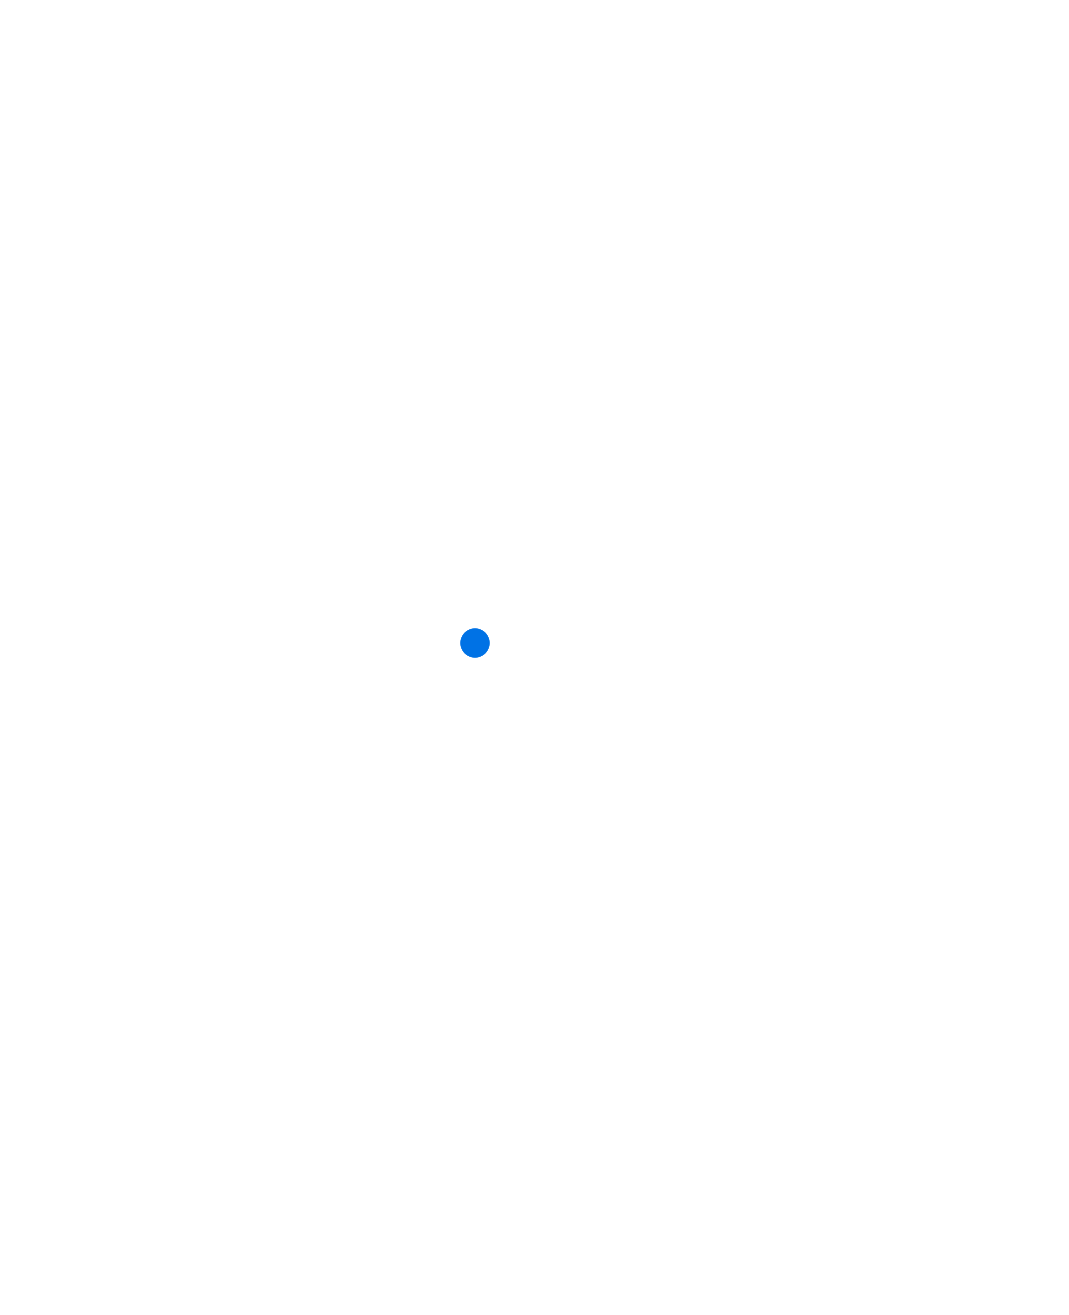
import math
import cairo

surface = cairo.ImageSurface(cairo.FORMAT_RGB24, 1069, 1315)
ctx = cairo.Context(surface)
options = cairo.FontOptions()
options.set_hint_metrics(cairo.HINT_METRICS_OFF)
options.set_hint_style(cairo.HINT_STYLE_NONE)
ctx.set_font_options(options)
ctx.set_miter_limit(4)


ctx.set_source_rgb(1, 1, 1)
ctx.paint()
gradient = cairo.RadialGradient(475, 643, 0, 475, 643, 15)
gradient.add_color_stop_rgba(0.9, 0, 0.447, 0.898, 1)
gradient.add_color_stop_rgba(1, 1, 1, 1, 1)
ctx.set_source(gradient)
ctx.rectangle(460, 628, 30, 30)
ctx.fill()
gradient = cairo.RadialGradient(475, 643, 0, 475, 643, 15)
gradient.add_color_stop_rgba(0.9, 0, 0.447, 0.898, 1)
gradient.add_color_stop_rgba(1, 0, 0.447, 0.898, 0)
ctx.set_source(gradient)
ctx.rectangle(460, 628, 30, 30)
ctx.fill()
ctx.rectangle(460, 628, 30, 30)
ctx.fill()
ctx.rectangle(460, 628, 30, 30)
ctx.fill()
surface.write_to_png("page.png")
